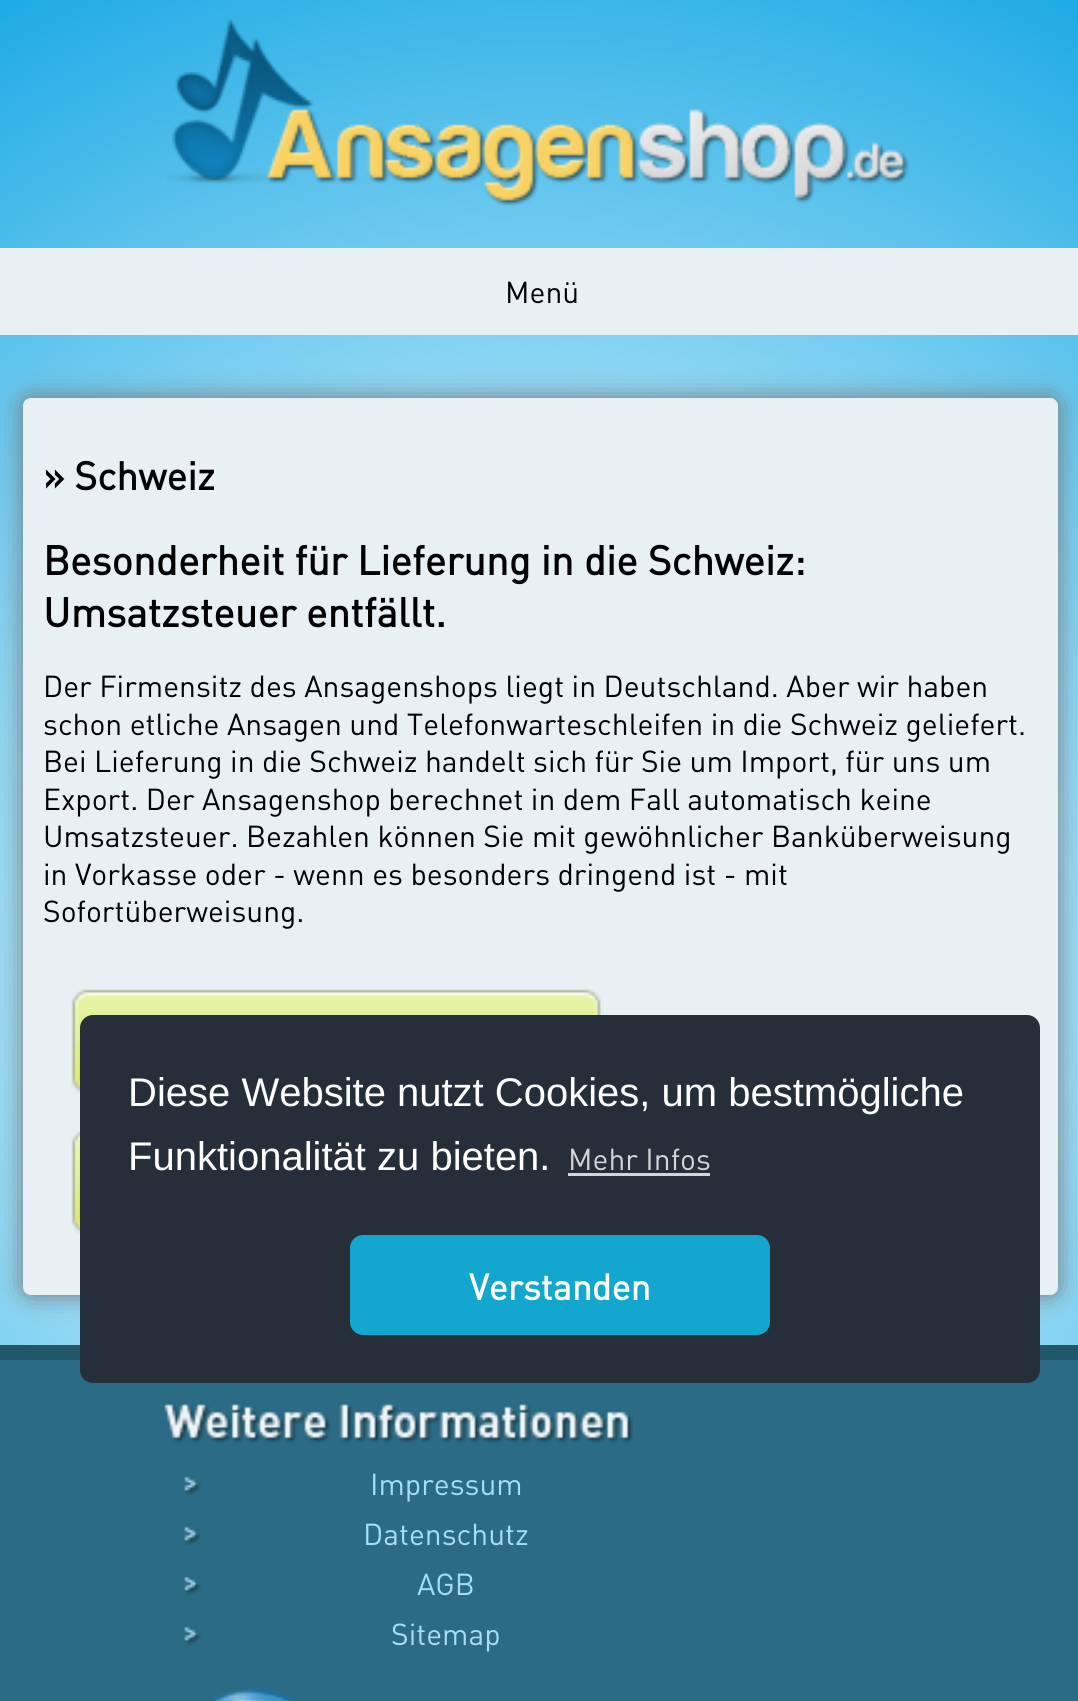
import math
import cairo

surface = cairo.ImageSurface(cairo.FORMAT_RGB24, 1078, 1701)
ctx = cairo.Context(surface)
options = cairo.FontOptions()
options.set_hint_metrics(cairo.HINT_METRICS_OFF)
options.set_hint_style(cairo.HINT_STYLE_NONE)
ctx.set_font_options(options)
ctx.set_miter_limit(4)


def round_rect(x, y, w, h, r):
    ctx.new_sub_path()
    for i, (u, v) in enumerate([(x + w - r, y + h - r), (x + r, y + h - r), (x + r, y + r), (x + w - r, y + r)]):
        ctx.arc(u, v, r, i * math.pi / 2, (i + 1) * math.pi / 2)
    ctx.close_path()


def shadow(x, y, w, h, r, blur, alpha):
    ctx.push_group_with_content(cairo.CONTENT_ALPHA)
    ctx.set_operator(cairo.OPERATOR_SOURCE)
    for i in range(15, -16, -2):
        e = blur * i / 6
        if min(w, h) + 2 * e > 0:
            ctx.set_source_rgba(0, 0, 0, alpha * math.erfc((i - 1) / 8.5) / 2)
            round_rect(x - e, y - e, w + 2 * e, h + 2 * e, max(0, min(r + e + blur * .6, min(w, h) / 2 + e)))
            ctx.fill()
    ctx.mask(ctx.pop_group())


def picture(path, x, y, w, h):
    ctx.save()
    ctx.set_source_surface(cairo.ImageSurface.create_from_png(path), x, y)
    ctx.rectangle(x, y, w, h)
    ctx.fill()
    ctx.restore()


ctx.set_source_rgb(1, 1, 1)
ctx.paint()
gradient = cairo.RadialGradient(540, 978, 0, 540, 978, 1117)
gradient.add_color_stop_rgba(0.43, 0.651, 0.878, 0.969, 1)
gradient.add_color_stop_rgba(1, 0.118, 0.667, 0.894, 1)
ctx.set_source(gradient)
ctx.rectangle(0, 0, 1078, 1345)
ctx.fill()
picture("img1.png", 167, 19, 743, 187)
ctx.set_source_rgb(0.91, 0.941, 0.957)
ctx.rectangle(0, 248, 1078, 87)
ctx.fill()
ctx.select_font_face("DIN")
ctx.set_font_size(30)
ctx.set_source_rgb(0, 0, 0)
ctx.move_to(505, 303)
ctx.show_text("Menü")
ctx.set_source_rgb(0.467, 0.467, 0.467)
shadow(23, 398, 1035, 897, 8, 12.5, 1)
ctx.set_source_rgb(0.91, 0.941, 0.957)
round_rect(23, 398, 1035, 897, 8)
ctx.fill()
ctx.select_font_face("DIN", cairo.FONT_SLANT_NORMAL, cairo.FONT_WEIGHT_BOLD)
ctx.set_font_size(39)
ctx.set_source_rgb(0, 0, 0)
ctx.move_to(43, 490)
ctx.show_text("» Schweiz")
ctx.set_font_size(40.5)
ctx.move_to(43, 575)
ctx.show_text("Besonderheit für Lieferung in die Schweiz:")
ctx.move_to(43, 627)
ctx.show_text("Umsatzsteuer entfällt.")
ctx.select_font_face("DIN")
ctx.set_font_size(30)
ctx.move_to(43, 697)
ctx.show_text("Der Firmensitz des Ansagenshops liegt in Deutschland. Aber wir haben")
ctx.move_to(43, 735)
ctx.show_text("schon etliche Ansagen und Telefonwarteschleifen in die Schweiz geliefert.")
ctx.move_to(43, 772)
ctx.show_text("Bei Lieferung in die Schweiz handelt sich für Sie um Import, für uns um")
ctx.move_to(43, 810)
ctx.show_text("Export. Der Ansagenshop berechnet in dem Fall automatisch keine")
ctx.move_to(43, 847)
ctx.show_text("Umsatzsteuer. Bezahlen können Sie mit gewöhnlicher Banküberweisung")
ctx.move_to(43, 885)
ctx.show_text("in Vorkasse oder - wenn es besonders dringend ist - mit")
ctx.move_to(43, 922)
ctx.show_text("Sofortüberweisung.")
picture("img2.png", 71, 989, 530, 105)
picture("img3.png", 71, 1130, 9, 104)
ctx.set_source_rgb(0.133, 0.337, 0.412)
ctx.rectangle(0, 1345, 1078, 15)
ctx.fill()
ctx.set_source_rgb(0.173, 0.42, 0.522)
ctx.rectangle(0, 1360, 1078, 341)
ctx.fill()
picture("img4.png", 164, 1404, 469, 39)
picture("img5.png", 184, 1476, 17, 19)
ctx.set_source_rgb(0.651, 0.871, 0.957)
ctx.move_to(370, 1495)
ctx.show_text("Impressum")
picture("img5.png", 184, 1526, 17, 19)
ctx.move_to(363, 1545)
ctx.show_text("Datenschutz")
picture("img5.png", 184, 1576, 17, 19)
ctx.move_to(417, 1595)
ctx.show_text("AGB")
picture("img5.png", 184, 1626, 17, 19)
ctx.move_to(391, 1645)
ctx.show_text("Sitemap")
picture("img6.png", 208, 1690, 89, 11)
ctx.set_source_rgb(0.145, 0.18, 0.224)
round_rect(80, 1015, 960, 368, 13)
ctx.fill()
ctx.select_font_face("Liberation Sans")
ctx.set_font_size(40)
ctx.set_source_rgb(1, 1, 1)
ctx.move_to(128, 1106)
ctx.show_text("Diese Website nutzt Cookies, um bestmögliche")
ctx.move_to(128, 1170)
ctx.show_text("Funktionalität zu bieten.")
ctx.select_font_face("DIN")
ctx.set_font_size(30)
ctx.set_source_rgb(0.827, 0.835, 0.843)
ctx.move_to(568, 1170)
ctx.show_text("Mehr Infos")
ctx.rectangle(568, 1173, 142, 3)
ctx.fill()
ctx.set_source_rgb(0.078, 0.655, 0.816)
round_rect(350, 1235, 420, 100, 13)
ctx.fill()
ctx.select_font_face("DIN", cairo.FONT_SLANT_NORMAL, cairo.FONT_WEIGHT_BOLD)
ctx.set_font_size(36)
ctx.set_source_rgb(1, 1, 1)
ctx.move_to(469, 1300)
ctx.show_text("Verstanden")
surface.write_to_png("page.png")
